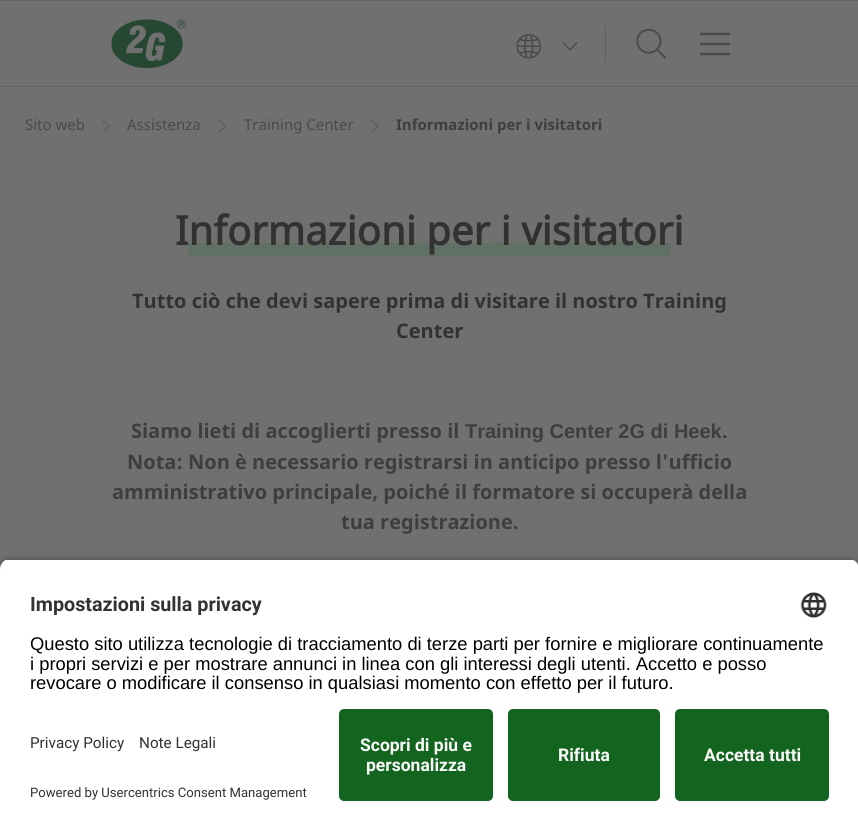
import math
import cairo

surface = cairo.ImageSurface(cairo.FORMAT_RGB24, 858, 831)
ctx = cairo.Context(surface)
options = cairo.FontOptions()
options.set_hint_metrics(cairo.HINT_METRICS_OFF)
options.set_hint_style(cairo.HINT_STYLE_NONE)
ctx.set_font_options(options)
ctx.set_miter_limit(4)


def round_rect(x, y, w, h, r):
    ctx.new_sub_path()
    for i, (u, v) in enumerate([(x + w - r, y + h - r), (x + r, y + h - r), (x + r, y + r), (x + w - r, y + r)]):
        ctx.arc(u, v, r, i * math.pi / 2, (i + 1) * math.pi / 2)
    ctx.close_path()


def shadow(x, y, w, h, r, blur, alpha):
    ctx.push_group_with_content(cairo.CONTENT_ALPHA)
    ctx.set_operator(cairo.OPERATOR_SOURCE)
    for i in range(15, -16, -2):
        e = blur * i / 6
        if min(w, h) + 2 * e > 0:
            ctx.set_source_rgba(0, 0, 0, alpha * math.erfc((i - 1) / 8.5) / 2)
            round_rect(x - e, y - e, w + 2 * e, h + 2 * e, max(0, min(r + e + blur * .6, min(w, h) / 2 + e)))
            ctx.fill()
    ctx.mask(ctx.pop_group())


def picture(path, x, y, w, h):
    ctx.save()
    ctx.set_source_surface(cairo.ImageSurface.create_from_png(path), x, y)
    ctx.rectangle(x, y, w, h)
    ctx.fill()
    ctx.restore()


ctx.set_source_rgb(0.439, 0.439, 0.439)
ctx.paint()
ctx.set_source_rgb(0.396, 0.396, 0.396)
ctx.rectangle(0, 0, 858, 1)
ctx.fill()
ctx.rectangle(0, 86, 858, 1)
ctx.fill()
picture("img1.png", 111, 19, 75, 50)
picture("img2.png", 516, 34, 25, 25)
picture("img3.png", 562, 41, 16, 10)
ctx.set_source_rgb(0.38, 0.38, 0.38)
ctx.rectangle(605, 25, 1, 38)
ctx.fill()
picture("img4.png", 636, 28, 31, 31)
ctx.new_path()
ctx.move_to(701, 34)
ctx.line_to(729, 34)
ctx.move_to(701, 44)
ctx.line_to(729, 44)
ctx.move_to(701, 54)
ctx.line_to(729, 54)
ctx.set_source_rgb(0.29, 0.29, 0.29)
ctx.set_line_width(2.5)
ctx.set_line_cap(cairo.LINE_CAP_ROUND)
ctx.stroke()
ctx.select_font_face("Noto Sans")
ctx.set_font_size(15)
ctx.move_to(25, 130)
ctx.show_text("Sito web")
picture("img5.png", 102, 120, 8, 13)
ctx.move_to(127, 130)
ctx.show_text("Assistenza")
picture("img6.png", 219, 120, 8, 13)
ctx.move_to(244, 130)
ctx.show_text("Training Center")
picture("img7.png", 371, 120, 8, 13)
ctx.select_font_face("Noto Sans", cairo.FONT_SLANT_NORMAL, cairo.FONT_WEIGHT_BOLD)
ctx.set_source_rgb(0.243, 0.243, 0.243)
ctx.move_to(396, 130)
ctx.show_text("Informazioni per i visitatori")
ctx.set_source_rgb(0.376, 0.439, 0.396)
ctx.rectangle(188, 243, 483, 13)
ctx.fill()
ctx.select_font_face("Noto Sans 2", cairo.FONT_SLANT_NORMAL, cairo.FONT_WEIGHT_BOLD)
ctx.set_font_size(40)
ctx.set_source_rgb(0.196, 0.196, 0.196)
ctx.move_to(175, 245)
ctx.show_text("Informazioni per i visitatori")
ctx.select_font_face("Noto Sans", cairo.FONT_SLANT_NORMAL, cairo.FONT_WEIGHT_BOLD)
ctx.set_font_size(20)
ctx.move_to(132, 308)
ctx.show_text("Tutto ciò che devi sapere prima di visitare il nostro Training")
ctx.move_to(396, 338)
ctx.show_text("Center")
ctx.set_source_rgb(0.243, 0.243, 0.243)
ctx.move_to(131, 438)
ctx.show_text("Siamo lieti di accoglierti presso il")
ctx.select_font_face("Liberation Sans", cairo.FONT_SLANT_NORMAL, cairo.FONT_WEIGHT_BOLD)
ctx.move_to(465, 438)
ctx.show_text("Training Center 2G di Heek")
ctx.select_font_face("Noto Sans", cairo.FONT_SLANT_NORMAL, cairo.FONT_WEIGHT_BOLD)
ctx.move_to(722, 438)
ctx.show_text(".")
ctx.move_to(127, 469)
ctx.show_text("Nota: Non è necessario registrarsi in anticipo presso l'ufficio")
ctx.move_to(112, 499)
ctx.show_text("amministrativo principale, poiché il formatore si occuperà della")
ctx.move_to(341, 529)
ctx.show_text("tua registrazione.")
ctx.set_source_rgb(0, 0, 0)
shadow(0, 563, 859, 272, 10, 4.5, 0.8)
ctx.save()
ctx.new_path()
ctx.move_to(10, 559)
ctx.line_to(849, 559)
ctx.curve_to(854.5, 559, 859, 563.5, 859, 569)
ctx.line_to(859, 699)
ctx.line_to(0, 699)
ctx.line_to(0, 569)
ctx.curve_to(0, 563.5, 4.5, 559, 10, 559)
ctx.close_path()
ctx.clip()
ctx.set_source_rgb(1, 1, 1)
ctx.rectangle(0, 560, 858, 139)
ctx.fill()
ctx.restore()
ctx.select_font_face("Roboto", cairo.FONT_SLANT_NORMAL, cairo.FONT_WEIGHT_BOLD)
ctx.set_font_size(19.75)
ctx.set_source_rgb(0.196, 0.196, 0.196)
ctx.move_to(30, 611)
ctx.show_text("Impostazioni sulla privacy")
picture("img8.png", 800, 592, 27, 26)
ctx.select_font_face("Liberation Sans")
ctx.set_font_size(18.35)
ctx.set_source_rgb(0, 0, 0)
ctx.move_to(30, 650)
ctx.show_text("Questo sito utilizza tecnologie di tracciamento di terze parti per fornire e migliorare continuamente")
ctx.move_to(30, 670)
ctx.show_text("i propri servizi e per mostrare annunci in linea con gli interessi degli utenti. Accetto e posso")
ctx.move_to(30, 689)
ctx.show_text("revocare o modificare il consenso in qualsiasi momento con effetto per il futuro.")
ctx.set_source_rgb(1, 1, 1)
ctx.rectangle(0, 699, 858, 132)
ctx.fill()
ctx.select_font_face("Roboto")
ctx.set_font_size(15.25)
ctx.set_source_rgb(0.196, 0.196, 0.196)
ctx.move_to(30, 748)
ctx.show_text("Privacy Policy")
ctx.move_to(139, 748)
ctx.show_text("Note Legali")
ctx.set_font_size(13.1)
ctx.move_to(30, 797)
ctx.show_text("Powered by Usercentrics Consent Management")
ctx.set_source_rgb(0.075, 0.392, 0.122)
round_rect(339, 709, 154, 92, 5)
ctx.fill()
ctx.select_font_face("Roboto", cairo.FONT_SLANT_NORMAL, cairo.FONT_WEIGHT_BOLD)
ctx.set_font_size(17.5)
ctx.set_source_rgb(0.98, 0.98, 0.98)
ctx.move_to(360, 751)
ctx.show_text("Scopri di più e")
ctx.move_to(366, 771)
ctx.show_text("personalizza")
ctx.set_source_rgb(0.075, 0.392, 0.122)
round_rect(508, 709, 152, 92, 5)
ctx.fill()
ctx.set_source_rgb(0.98, 0.98, 0.98)
ctx.move_to(558, 761)
ctx.show_text("Rifiuta")
ctx.set_source_rgb(0.075, 0.392, 0.122)
round_rect(675, 709, 154, 92, 5)
ctx.fill()
ctx.set_source_rgb(0.98, 0.98, 0.98)
ctx.move_to(704, 761)
ctx.show_text("Accetta tutti")
surface.write_to_png("page.png")
